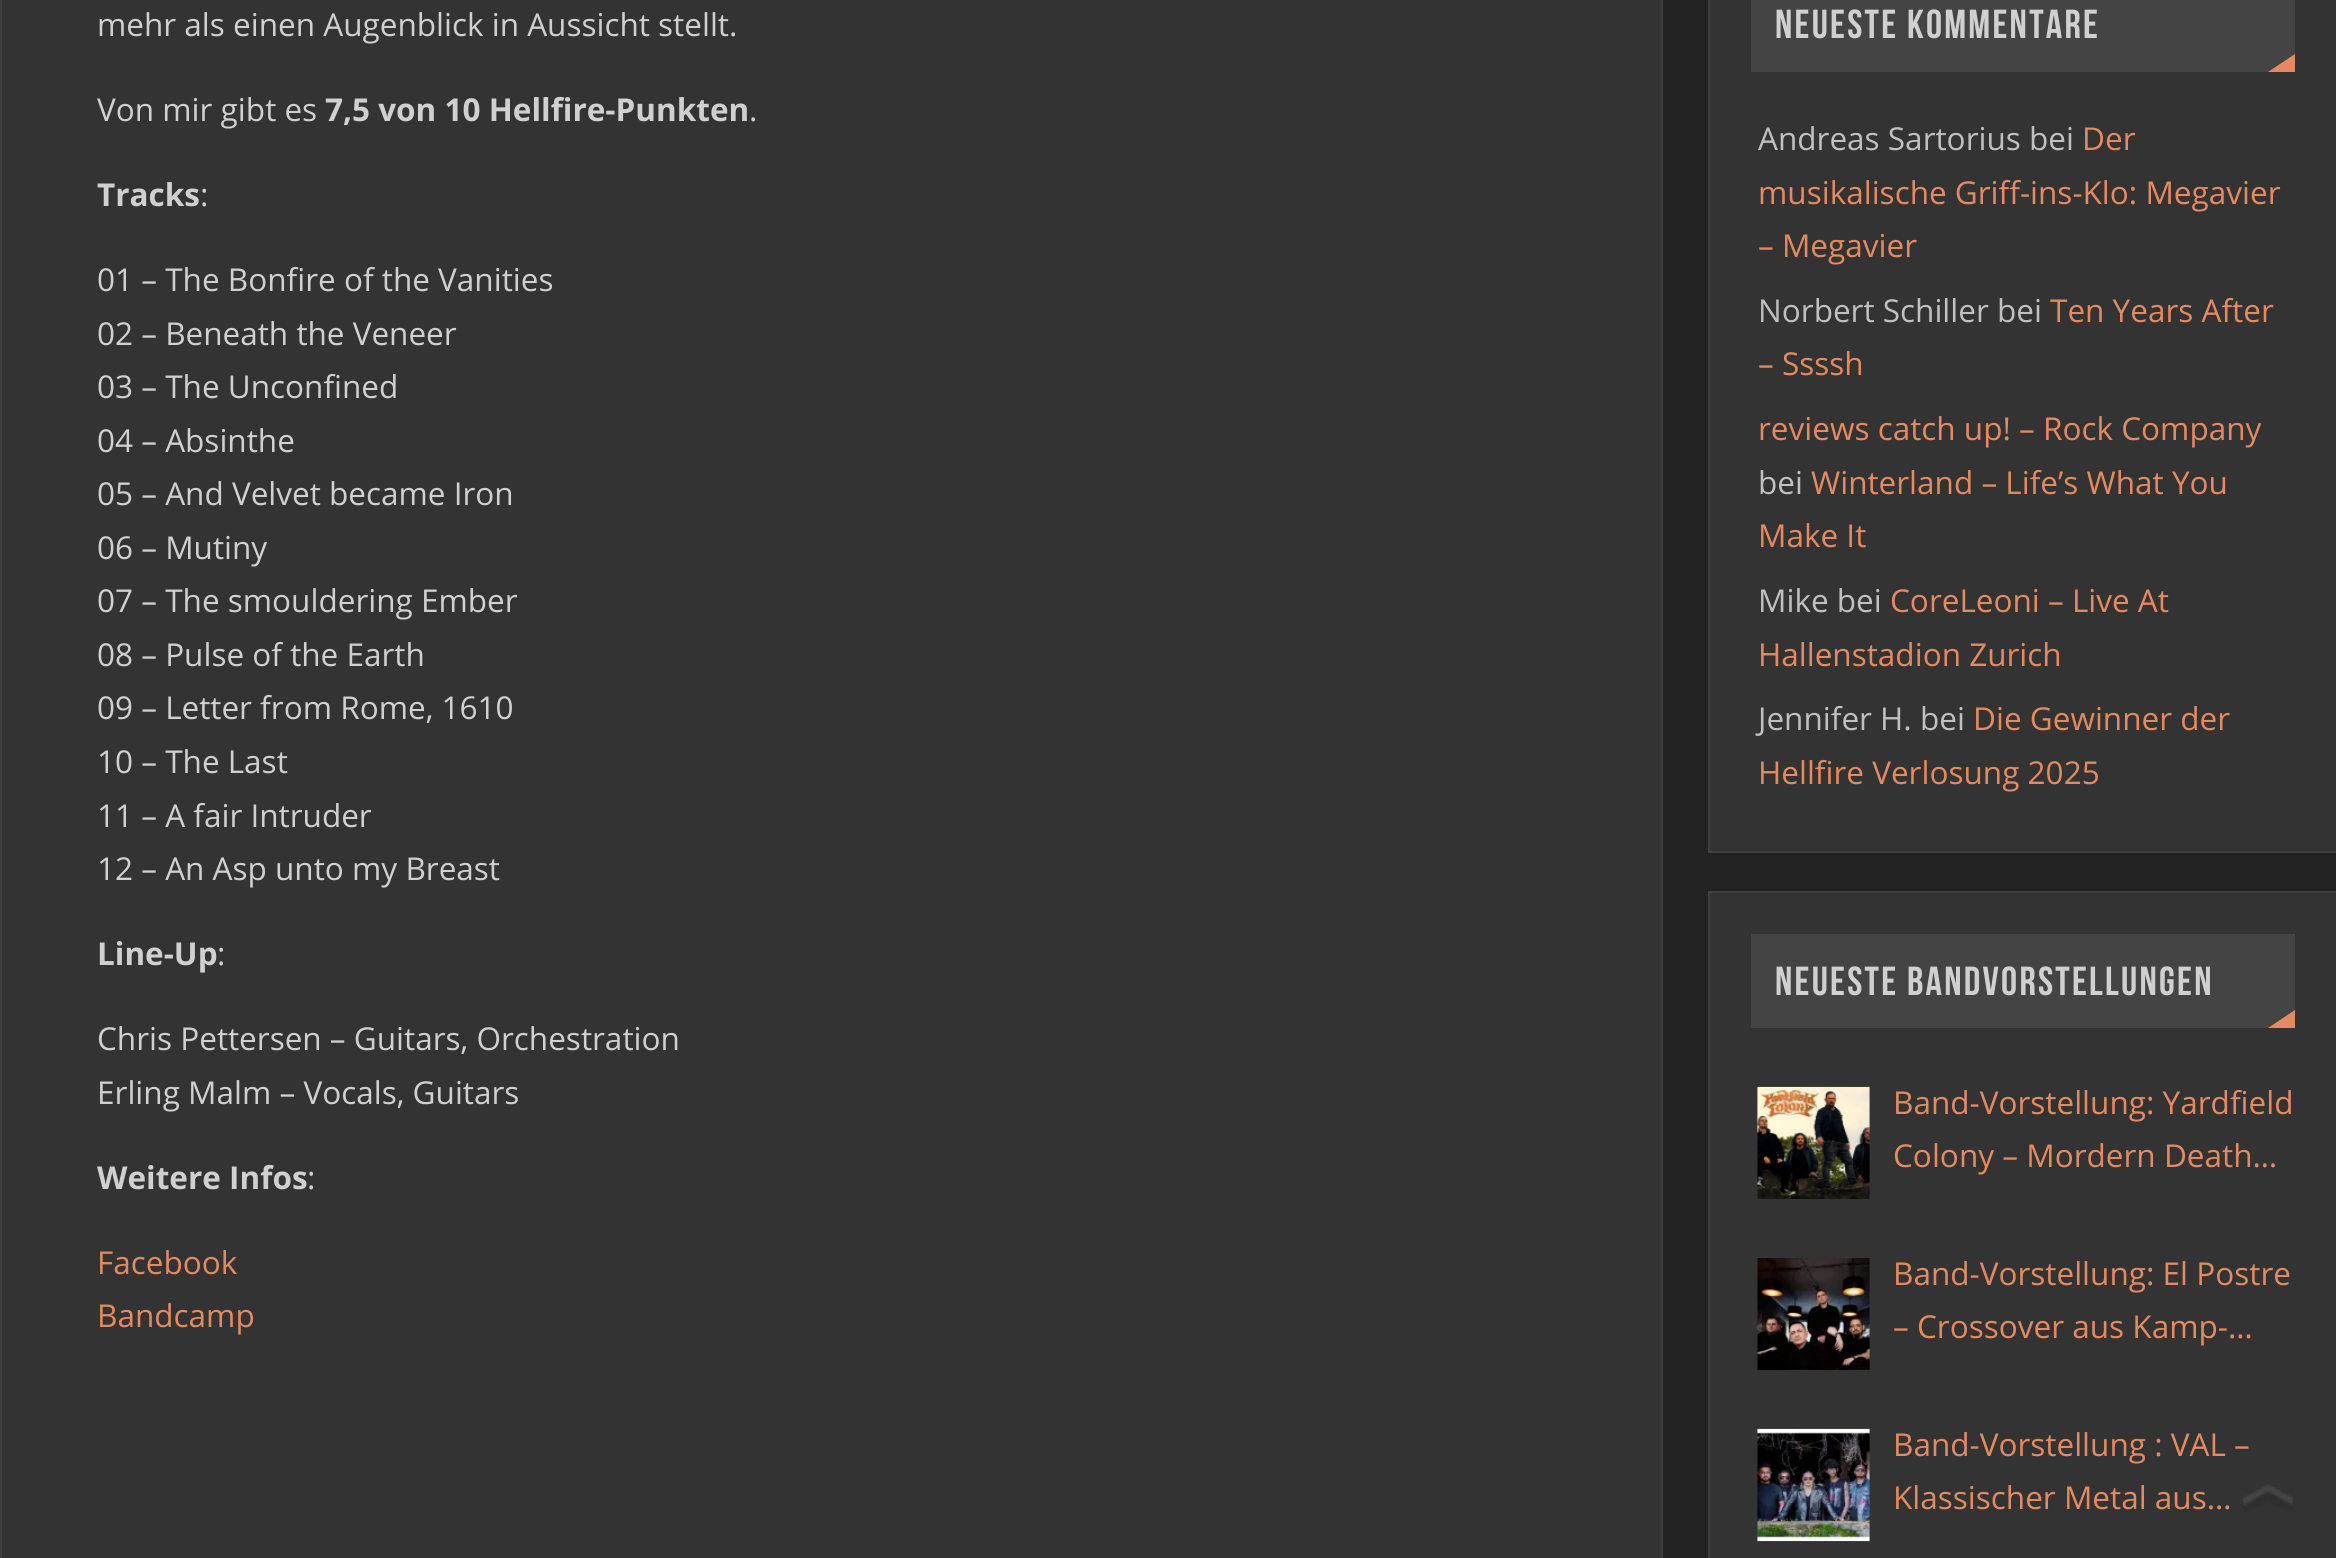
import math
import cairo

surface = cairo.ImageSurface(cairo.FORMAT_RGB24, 2336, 1558)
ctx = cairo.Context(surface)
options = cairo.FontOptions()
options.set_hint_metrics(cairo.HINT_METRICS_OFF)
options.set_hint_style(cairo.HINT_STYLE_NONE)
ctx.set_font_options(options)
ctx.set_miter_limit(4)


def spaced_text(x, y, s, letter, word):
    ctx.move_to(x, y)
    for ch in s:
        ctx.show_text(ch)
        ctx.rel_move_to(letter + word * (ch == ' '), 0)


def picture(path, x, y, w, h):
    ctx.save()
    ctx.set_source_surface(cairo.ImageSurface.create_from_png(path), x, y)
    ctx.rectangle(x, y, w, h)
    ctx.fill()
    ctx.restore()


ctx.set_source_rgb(0.133, 0.133, 0.133)
ctx.paint()
ctx.set_source_rgb(0.2, 0.2, 0.2)
ctx.rectangle(1, -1, 1661, 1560)
ctx.fill_preserve()
ctx.set_source_rgb(0.247, 0.247, 0.247)
ctx.stroke()
ctx.select_font_face("Open Sans")
ctx.set_font_size(31.5)
ctx.set_source_rgb(0.816, 0.816, 0.816)
ctx.move_to(97, 36)
ctx.show_text("mehr als einen Augenblick in Aussicht stellt.")
ctx.move_to(97, 121)
ctx.show_text("Von mir gibt es")
ctx.select_font_face("Open Sans", cairo.FONT_SLANT_NORMAL, cairo.FONT_WEIGHT_BOLD)
ctx.move_to(325, 121)
ctx.show_text("7,5 von 10 Hellfire-Punkten")
ctx.select_font_face("Open Sans")
ctx.move_to(749, 121)
ctx.show_text(".")
ctx.select_font_face("Open Sans", cairo.FONT_SLANT_NORMAL, cairo.FONT_WEIGHT_BOLD)
ctx.move_to(97, 206)
ctx.show_text("Tracks")
ctx.select_font_face("Open Sans")
ctx.move_to(200, 206)
ctx.show_text(":")
ctx.move_to(97, 291)
ctx.show_text("01 – The Bonfire of the Vanities")
ctx.move_to(97, 345)
ctx.show_text("02 – Beneath the Veneer")
ctx.move_to(97, 398)
ctx.show_text("03 – The Unconfined")
ctx.move_to(97, 452)
ctx.show_text("04 – Absinthe")
ctx.move_to(97, 505)
ctx.show_text("05 – And Velvet became Iron")
ctx.move_to(97, 559)
ctx.show_text("06 – Mutiny")
ctx.move_to(97, 612)
ctx.show_text("07 – The smouldering Ember")
ctx.move_to(97, 666)
ctx.show_text("08 – Pulse of the Earth")
ctx.move_to(97, 719)
ctx.show_text("09 – Letter from Rome, 1610")
ctx.move_to(97, 773)
ctx.show_text("10 – The Last")
ctx.move_to(97, 827)
ctx.show_text("11 – A fair Intruder")
ctx.move_to(97, 880)
ctx.show_text("12 – An Asp unto my Breast")
ctx.select_font_face("Open Sans", cairo.FONT_SLANT_NORMAL, cairo.FONT_WEIGHT_BOLD)
ctx.move_to(97, 965)
ctx.show_text("Line-Up")
ctx.select_font_face("Open Sans")
ctx.move_to(217, 965)
ctx.show_text(":")
ctx.move_to(97, 1050)
ctx.show_text("Chris Pettersen – Guitars, Orchestration")
ctx.move_to(97, 1104)
ctx.show_text("Erling Malm – Vocals, Guitars")
ctx.select_font_face("Open Sans", cairo.FONT_SLANT_NORMAL, cairo.FONT_WEIGHT_BOLD)
ctx.move_to(97, 1189)
ctx.show_text("Weitere Infos")
ctx.select_font_face("Open Sans")
ctx.move_to(307, 1189)
ctx.show_text(":")
ctx.set_source_rgb(0.898, 0.541, 0.376)
ctx.move_to(97, 1274)
ctx.show_text("Facebook")
ctx.move_to(97, 1327)
ctx.show_text("Bandcamp")
ctx.set_source_rgb(0.2, 0.2, 0.2)
ctx.rectangle(1709, -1, 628, 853)
ctx.fill_preserve()
ctx.set_source_rgb(0.247, 0.247, 0.247)
ctx.stroke()
ctx.set_source_rgb(0.267, 0.267, 0.267)
ctx.rectangle(1751, 0, 544, 72)
ctx.fill()
ctx.select_font_face("Bebas Neue")
ctx.set_font_size(40.5)
ctx.set_source_rgb(0.816, 0.816, 0.816)
spaced_text(1775, 38, "NEUESTE KOMMENTARE", 2.25, 0)
ctx.set_source_rgb(0.898, 0.541, 0.376)
ctx.new_path()
ctx.move_to(2295, 72)
ctx.line_to(2268, 72)
ctx.line_to(2295, 54)
ctx.close_path()
ctx.fill()
ctx.select_font_face("Open Sans")
ctx.set_font_size(31.5)
ctx.set_source_rgb(0.753, 0.753, 0.753)
ctx.move_to(1758, 150)
ctx.show_text("Andreas Sartorius bei")
ctx.set_source_rgb(0.898, 0.541, 0.376)
ctx.move_to(2082, 150)
ctx.show_text("Der")
ctx.move_to(1758, 204)
ctx.show_text("musikalische Griff-ins-Klo: Megavier")
ctx.move_to(1758, 257)
ctx.show_text("– Megavier")
ctx.set_source_rgb(0.753, 0.753, 0.753)
ctx.move_to(1758, 322)
ctx.show_text("Norbert Schiller bei")
ctx.set_source_rgb(0.898, 0.541, 0.376)
ctx.move_to(2050, 322)
ctx.show_text("Ten Years After")
ctx.move_to(1758, 375)
ctx.show_text("– Ssssh")
ctx.move_to(1758, 440)
ctx.show_text("reviews catch up! – Rock Company")
ctx.set_source_rgb(0.753, 0.753, 0.753)
ctx.move_to(1758, 494)
ctx.show_text("bei")
ctx.set_source_rgb(0.898, 0.541, 0.376)
ctx.move_to(1811, 494)
ctx.show_text("Winterland – Life’s What You")
ctx.move_to(1758, 547)
ctx.show_text("Make It")
ctx.set_source_rgb(0.753, 0.753, 0.753)
ctx.move_to(1758, 612)
ctx.show_text("Mike bei")
ctx.set_source_rgb(0.898, 0.541, 0.376)
ctx.move_to(1890, 612)
ctx.show_text("CoreLeoni – Live At")
ctx.move_to(1758, 666)
ctx.show_text("Hallenstadion Zurich")
ctx.set_source_rgb(0.753, 0.753, 0.753)
ctx.move_to(1758, 730)
ctx.show_text("Jennifer H. bei")
ctx.set_source_rgb(0.898, 0.541, 0.376)
ctx.move_to(1973, 730)
ctx.show_text("Die Gewinner der")
ctx.move_to(1758, 784)
ctx.show_text("Hellfire Verlosung 2025")
ctx.set_source_rgb(0.2, 0.2, 0.2)
ctx.rectangle(1709, 892, 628, 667)
ctx.fill_preserve()
ctx.set_source_rgb(0.247, 0.247, 0.247)
ctx.stroke()
ctx.set_source_rgb(0.267, 0.267, 0.267)
ctx.rectangle(1751, 934, 544, 94)
ctx.fill()
ctx.select_font_face("Bebas Neue")
ctx.set_font_size(40.5)
ctx.set_source_rgb(0.816, 0.816, 0.816)
spaced_text(1775, 995, "NEUESTE BANDVORSTELLUNGEN", 2.25, 0)
ctx.set_source_rgb(0.898, 0.541, 0.376)
ctx.new_path()
ctx.move_to(2295, 1028)
ctx.line_to(2268, 1028)
ctx.line_to(2295, 1010)
ctx.close_path()
ctx.fill()
picture("img1.png", 1757, 1086, 113, 113)
ctx.select_font_face("Open Sans")
ctx.set_font_size(31.5)
ctx.move_to(1893, 1114)
ctx.show_text("Band-Vorstellung: Yardfield")
ctx.move_to(1893, 1167)
ctx.show_text("Colony – Mordern Death…")
picture("img2.png", 1757, 1258, 113, 112)
ctx.move_to(1893, 1285)
ctx.show_text("Band-Vorstellung: El Postre")
ctx.move_to(1893, 1338)
ctx.show_text("– Crossover aus Kamp-…")
picture("img3.png", 1757, 1428, 113, 114)
ctx.move_to(1893, 1456)
ctx.show_text("Band-Vorstellung : VAL –")
ctx.move_to(1893, 1509)
ctx.show_text("Klassischer Metal aus…")
picture("img4.png", 2243, 1484, 50, 28)
surface.write_to_png("page.png")
